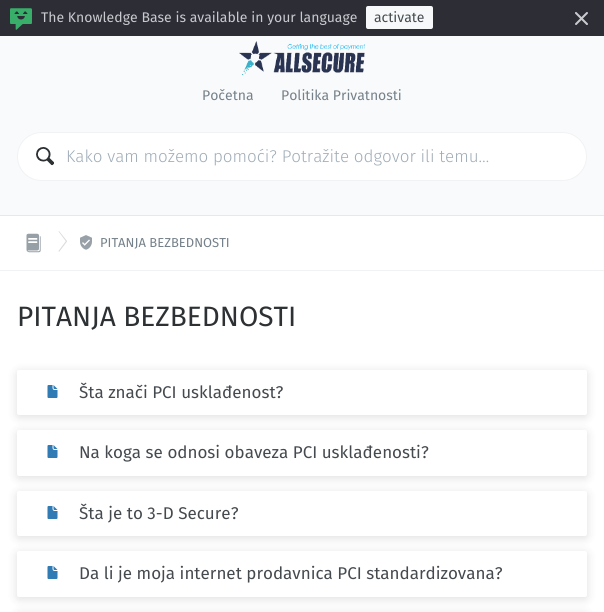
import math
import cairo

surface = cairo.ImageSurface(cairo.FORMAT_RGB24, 604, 612)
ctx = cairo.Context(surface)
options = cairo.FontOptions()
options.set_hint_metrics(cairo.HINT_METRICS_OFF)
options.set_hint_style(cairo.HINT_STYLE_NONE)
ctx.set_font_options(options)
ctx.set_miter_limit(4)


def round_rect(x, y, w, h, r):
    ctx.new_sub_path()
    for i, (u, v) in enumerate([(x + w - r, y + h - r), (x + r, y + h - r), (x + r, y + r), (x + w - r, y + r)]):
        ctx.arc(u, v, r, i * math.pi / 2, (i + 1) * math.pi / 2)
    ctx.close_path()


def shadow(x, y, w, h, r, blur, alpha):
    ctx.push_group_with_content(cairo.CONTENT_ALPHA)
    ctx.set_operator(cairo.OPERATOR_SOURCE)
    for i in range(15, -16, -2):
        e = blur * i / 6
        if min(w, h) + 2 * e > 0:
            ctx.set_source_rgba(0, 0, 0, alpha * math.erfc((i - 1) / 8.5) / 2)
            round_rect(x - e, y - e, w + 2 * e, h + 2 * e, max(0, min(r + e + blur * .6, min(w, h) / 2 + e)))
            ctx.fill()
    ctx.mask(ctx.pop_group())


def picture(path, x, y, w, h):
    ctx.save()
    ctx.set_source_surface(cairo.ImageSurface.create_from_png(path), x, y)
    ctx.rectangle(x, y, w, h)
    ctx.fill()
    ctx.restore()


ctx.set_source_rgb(1, 1, 1)
ctx.paint()
ctx.set_source_rgb(0.173, 0.176, 0.208)
ctx.rectangle(0, 0, 604, 36)
ctx.fill()
picture("img1.png", 10, 8, 22, 22)
ctx.select_font_face("Fira Sans")
ctx.set_font_size(14)
ctx.set_source_rgb(0.788, 0.792, 0.812)
ctx.move_to(41, 22)
ctx.show_text("The Knowledge Base is available in your language")
ctx.set_source_rgb(0.965, 0.969, 0.973)
round_rect(366, 6, 67, 23, 2)
ctx.fill()
ctx.set_source_rgb(0.271, 0.29, 0.31)
ctx.move_to(374, 22)
ctx.show_text("activate")
picture("img2.png", 575, 12, 13, 13)
ctx.set_source_rgb(0.976, 0.98, 0.984)
ctx.rectangle(0, 36, 604, 179)
ctx.fill()
ctx.set_source_rgb(0.898, 0.91, 0.922)
ctx.rectangle(0, 215, 604, 1)
ctx.fill()
picture("img3.png", 239, 41, 126, 34)
ctx.set_source_rgb(0.459, 0.506, 0.541)
ctx.move_to(202, 100)
ctx.show_text("Početna")
ctx.move_to(281, 100)
ctx.show_text("Politika Privatnosti")
ctx.set_source_rgb(1, 1, 1)
round_rect(17.5, 132.5, 569, 48, 24)
ctx.fill_preserve()
ctx.set_source_rgb(0.945, 0.949, 0.957)
ctx.set_line_width(1)
ctx.stroke()
picture("img4.png", 36, 147, 18, 19)
ctx.select_font_face("Fira Sans Light")
ctx.set_font_size(17)
ctx.set_source_rgb(0.624, 0.675, 0.718)
ctx.move_to(66, 162)
ctx.show_text("Kako vam možemo pomoći? Potražite odgovor ili temu…")
ctx.set_source_rgb(0.945, 0.949, 0.957)
ctx.rectangle(0, 270, 604, 1)
ctx.fill()
picture("img5.png", 26, 233, 15, 20)
ctx.set_source_rgb(0.855, 0.859, 0.863)
ctx.new_path()
ctx.move_to(58.5, 231.5)
ctx.line_to(59, 231)
ctx.line_to(67, 241)
ctx.line_to(66, 241.5)
ctx.close_path()
ctx.fill()
ctx.set_source_rgba(0.271, 0.29, 0.31, 0.2)
ctx.new_path()
ctx.move_to(66, 241)
ctx.line_to(67, 241.5)
ctx.line_to(59, 252)
ctx.line_to(58.5, 251)
ctx.close_path()
ctx.fill()
picture("img6.png", 80, 235, 12, 15)
ctx.select_font_face("Fira Sans")
ctx.set_font_size(13)
ctx.set_source_rgb(0.459, 0.506, 0.541)
ctx.move_to(100, 247)
ctx.show_text("PITANJA BEZBEDNOSTI")
ctx.set_font_size(28)
ctx.set_source_rgb(0.176, 0.192, 0.204)
ctx.move_to(17, 326)
ctx.show_text("PITANJA BEZBEDNOSTI")
ctx.set_source_rgb(0, 0, 0)
shadow(17, 372, 570, 45, 2, 5, 0.13)
ctx.set_source_rgb(1, 1, 1)
round_rect(17, 370, 570, 45, 2)
ctx.fill()
picture("img7.png", 47, 385, 11, 13)
ctx.set_font_size(17)
ctx.set_source_rgb(0.271, 0.29, 0.31)
ctx.move_to(79, 398)
ctx.show_text("Šta znači PCI usklađenost?")
ctx.set_source_rgb(0, 0, 0)
shadow(17, 432, 570, 46, 2, 5, 0.13)
ctx.set_source_rgb(1, 1, 1)
round_rect(17, 430, 570, 46, 2)
ctx.fill()
picture("img7.png", 47, 445, 11, 13)
ctx.set_source_rgb(0.271, 0.29, 0.31)
ctx.move_to(79, 458)
ctx.show_text("Na koga se odnosi obaveza PCI usklađenosti?")
ctx.set_source_rgb(0, 0, 0)
shadow(17, 493, 570, 45, 2, 5, 0.13)
ctx.set_source_rgb(1, 1, 1)
round_rect(17, 491, 570, 45, 2)
ctx.fill()
picture("img8.png", 47, 506, 11, 13)
ctx.set_source_rgb(0.271, 0.29, 0.31)
ctx.move_to(79, 519)
ctx.show_text("Šta je to 3-D Secure?")
ctx.set_source_rgb(0, 0, 0)
shadow(17, 553, 570, 46, 2, 5, 0.13)
ctx.set_source_rgb(1, 1, 1)
round_rect(17, 551, 570, 46, 2)
ctx.fill()
picture("img7.png", 47, 566, 11, 13)
ctx.set_source_rgb(0.271, 0.29, 0.31)
ctx.move_to(79, 579)
ctx.show_text("Da li je moja internet prodavnica PCI standardizovana?")
ctx.set_source_rgb(0, 0, 0)
shadow(17, 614, 570, 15, 2, 5, 0.13)
surface.write_to_png("page.png")
